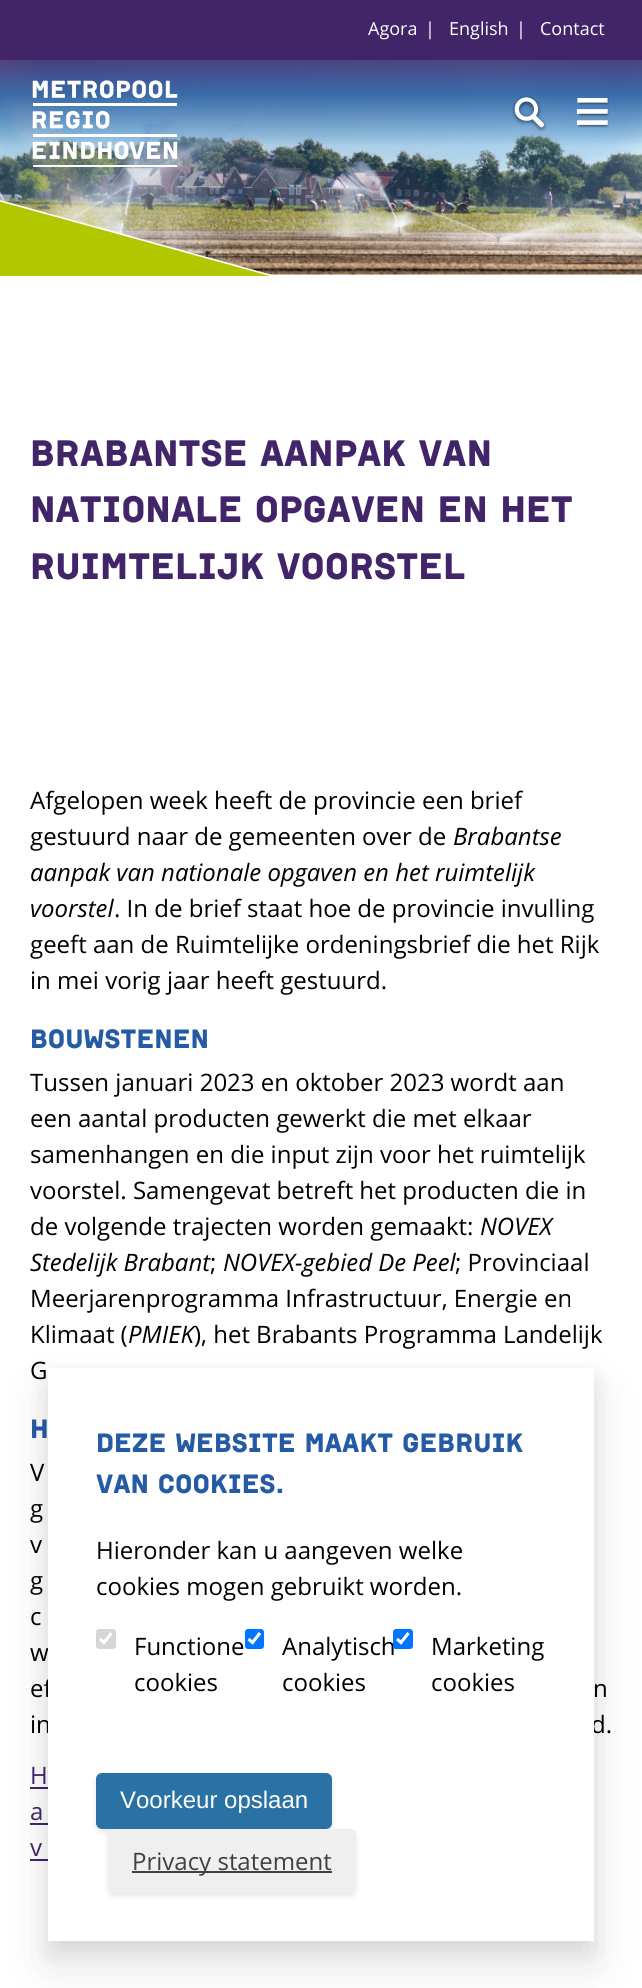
import math
import cairo

surface = cairo.ImageSurface(cairo.FORMAT_RGB24, 642, 1988)
ctx = cairo.Context(surface)
options = cairo.FontOptions()
options.set_hint_metrics(cairo.HINT_METRICS_OFF)
options.set_hint_style(cairo.HINT_STYLE_NONE)
ctx.set_font_options(options)
ctx.set_miter_limit(4)


def round_rect(x, y, w, h, r):
    ctx.new_sub_path()
    for i, (u, v) in enumerate([(x + w - r, y + h - r), (x + r, y + h - r), (x + r, y + r), (x + w - r, y + r)]):
        ctx.arc(u, v, r, i * math.pi / 2, (i + 1) * math.pi / 2)
    ctx.close_path()


def shadow(x, y, w, h, r, blur, alpha):
    ctx.push_group_with_content(cairo.CONTENT_ALPHA)
    ctx.set_operator(cairo.OPERATOR_SOURCE)
    for i in range(15, -16, -2):
        e = blur * i / 6
        if min(w, h) + 2 * e > 0:
            ctx.set_source_rgba(0, 0, 0, alpha * math.erfc((i - 1) / 8.5) / 2)
            round_rect(x - e, y - e, w + 2 * e, h + 2 * e, max(0, min(r + e + blur * .6, min(w, h) / 2 + e)))
            ctx.fill()
    ctx.mask(ctx.pop_group())


def picture(path, x, y, w, h):
    ctx.save()
    ctx.set_source_surface(cairo.ImageSurface.create_from_png(path), x, y)
    ctx.rectangle(x, y, w, h)
    ctx.fill()
    ctx.restore()


ctx.set_source_rgb(1, 1, 1)
ctx.paint()
ctx.set_source_rgb(0.259, 0.145, 0.408)
ctx.rectangle(0, 0, 642, 60)
ctx.fill()
ctx.select_font_face("Open Sans")
ctx.set_font_size(18)
ctx.set_source_rgb(1, 1, 1)
ctx.move_to(368, 35)
ctx.show_text("Agora")
ctx.move_to(425, 35)
ctx.show_text("|")
ctx.move_to(449, 35)
ctx.show_text("English")
ctx.move_to(516, 35)
ctx.show_text("|")
ctx.move_to(540, 35)
ctx.show_text("Contact")
picture("img1.png", 0, 60, 642, 215)
ctx.new_path()
ctx.move_to(276, 276)
ctx.line_to(0, 276)
ctx.line_to(0, 200)
ctx.close_path()
ctx.fill()
ctx.set_source_rgb(0.694, 0.784, 0)
ctx.new_path()
ctx.move_to(270, 276)
ctx.line_to(-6, 276)
ctx.line_to(-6, 200)
ctx.close_path()
ctx.fill()
picture("img2.png", 32, 80, 146, 87)
picture("img3.png", 511, 96, 36, 36)
picture("img4.png", 576, 98, 33, 30)
ctx.select_font_face("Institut")
ctx.set_font_size(37.5)
ctx.set_source_rgb(0.259, 0.145, 0.408)
ctx.move_to(30, 466)
ctx.show_text("BRABANTSE AANPAK VAN")
ctx.move_to(30, 522)
ctx.show_text("NATIONALE OPGAVEN EN HET")
ctx.move_to(30, 579)
ctx.show_text("RUIMTELIJK VOORSTEL")
ctx.select_font_face("Open Sans")
ctx.set_font_size(24)
ctx.set_source_rgb(0, 0, 0)
ctx.move_to(30, 809)
ctx.show_text("Afgelopen week heeft de provincie een brief")
ctx.move_to(30, 845)
ctx.show_text("gestuurd naar de gemeenten over de")
ctx.select_font_face("Open Sans", cairo.FONT_SLANT_ITALIC)
ctx.move_to(453, 845)
ctx.show_text("Brabantse")
ctx.move_to(30, 881)
ctx.show_text("aanpak van nationale opgaven en het ruimtelijk")
ctx.move_to(30, 917)
ctx.show_text("voorstel")
ctx.select_font_face("Open Sans")
ctx.move_to(114, 917)
ctx.show_text(". In de brief staat hoe de provincie invulling")
ctx.move_to(30, 953)
ctx.show_text("geeft aan de Ruimtelijke ordeningsbrief die het Rijk")
ctx.move_to(30, 989)
ctx.show_text("in mei vorig jaar heeft gestuurd.")
ctx.select_font_face("Institut")
ctx.set_font_size(27)
ctx.set_source_rgb(0.145, 0.353, 0.643)
ctx.move_to(30, 1048)
ctx.show_text("BOUWSTENEN")
ctx.select_font_face("Open Sans")
ctx.set_font_size(24)
ctx.set_source_rgb(0, 0, 0)
ctx.move_to(30, 1091)
ctx.show_text("Tussen januari 2023 en oktober 2023 wordt aan")
ctx.move_to(30, 1127)
ctx.show_text("een aantal producten gewerkt die met elkaar")
ctx.move_to(30, 1163)
ctx.show_text("samenhangen en die input zijn voor het ruimtelijk")
ctx.move_to(30, 1199)
ctx.show_text("voorstel. Samengevat betreft het producten die in")
ctx.move_to(30, 1235)
ctx.show_text("de volgende trajecten worden gemaakt:")
ctx.select_font_face("Open Sans", cairo.FONT_SLANT_ITALIC)
ctx.move_to(480, 1235)
ctx.show_text("NOVEX")
ctx.move_to(30, 1271)
ctx.show_text("Stedelijk Brabant")
ctx.select_font_face("Open Sans")
ctx.move_to(210, 1271)
ctx.show_text(";")
ctx.select_font_face("Open Sans", cairo.FONT_SLANT_ITALIC)
ctx.move_to(223, 1271)
ctx.show_text("NOVEX-gebied De Peel")
ctx.select_font_face("Open Sans")
ctx.move_to(455, 1271)
ctx.show_text("; Provinciaal")
ctx.move_to(30, 1307)
ctx.show_text("Meerjarenprogramma Infrastructuur, Energie en")
ctx.move_to(30, 1343)
ctx.show_text("Klimaat (")
ctx.select_font_face("Open Sans", cairo.FONT_SLANT_ITALIC)
ctx.move_to(128, 1343)
ctx.show_text("PMIEK")
ctx.select_font_face("Open Sans")
ctx.move_to(194, 1343)
ctx.show_text("), het Brabants Programma Landelijk")
ctx.move_to(30, 1379)
ctx.show_text("G")
ctx.select_font_face("Institut")
ctx.set_font_size(27)
ctx.set_source_rgb(0.145, 0.353, 0.643)
ctx.move_to(30, 1438)
ctx.show_text("H")
ctx.select_font_face("Open Sans")
ctx.set_font_size(24)
ctx.set_source_rgb(0, 0, 0)
ctx.move_to(30, 1481)
ctx.show_text("V")
ctx.move_to(30, 1517)
ctx.show_text("g")
ctx.move_to(30, 1553)
ctx.show_text("v")
ctx.move_to(30, 1589)
ctx.show_text("g")
ctx.move_to(30, 1625)
ctx.show_text("c")
ctx.move_to(30, 1661)
ctx.show_text("w")
ctx.move_to(30, 1697)
ctx.show_text("ef")
ctx.move_to(593, 1697)
ctx.show_text("n")
ctx.move_to(30, 1733)
ctx.show_text("in")
ctx.move_to(591, 1733)
ctx.show_text("d.")
ctx.set_source_rgb(0.259, 0.145, 0.408)
ctx.move_to(30, 1784)
ctx.show_text("H")
ctx.rectangle(30, 1787, 18, 2)
ctx.fill()
ctx.move_to(30, 1820)
ctx.show_text("a")
ctx.rectangle(30, 1823, 18, 2)
ctx.fill()
ctx.move_to(30, 1856)
ctx.show_text("v")
ctx.rectangle(30, 1859, 18, 2)
ctx.fill()
ctx.set_source_rgb(0, 0, 0)
shadow(48, 1376, 546, 573, 0, 11, 0.08)
shadow(48, 1391, 546, 573, 0, 22.5, 0.11)
ctx.set_source_rgb(1, 1, 1)
ctx.rectangle(48, 1368, 546, 573)
ctx.fill()
ctx.select_font_face("Institut")
ctx.set_font_size(27)
ctx.set_source_rgb(0.145, 0.353, 0.643)
ctx.move_to(96, 1452)
ctx.show_text("DEZE WEBSITE MAAKT GEBRUIK")
ctx.move_to(96, 1493)
ctx.show_text("VAN COOKIES.")
ctx.select_font_face("Open Sans")
ctx.set_font_size(24)
ctx.set_source_rgb(0, 0, 0)
ctx.move_to(96, 1559)
ctx.show_text("Hieronder kan u aangeven welke")
ctx.move_to(96, 1595)
ctx.show_text("cookies mogen gebruikt worden.")
ctx.set_source_rgb(0.839, 0.839, 0.839)
round_rect(96, 1629, 20, 20, 3)
ctx.fill()
ctx.new_path()
ctx.move_to(100, 1639)
ctx.line_to(104, 1642.5)
ctx.line_to(111.5, 1633)
ctx.set_source_rgb(1, 1, 1)
ctx.set_line_width(3.1)
ctx.stroke()
ctx.set_source_rgb(0, 0, 0)
ctx.move_to(134, 1655)
ctx.show_text("Functione")
ctx.move_to(134, 1691)
ctx.show_text("cookies")
ctx.set_source_rgb(0, 0.459, 1)
round_rect(245, 1629, 19, 20, 3)
ctx.fill()
ctx.new_path()
ctx.move_to(248.5, 1639)
ctx.line_to(252.5, 1642.5)
ctx.line_to(260, 1633)
ctx.set_source_rgb(1, 1, 1)
ctx.stroke()
ctx.set_source_rgb(0, 0, 0)
ctx.move_to(282, 1655)
ctx.show_text("Analytisch")
ctx.move_to(282, 1691)
ctx.show_text("cookies")
ctx.set_source_rgb(0, 0.459, 1)
round_rect(393, 1629, 20, 20, 3)
ctx.fill()
ctx.new_path()
ctx.move_to(397, 1639)
ctx.line_to(401, 1642.5)
ctx.line_to(408.5, 1633)
ctx.set_source_rgb(1, 1, 1)
ctx.stroke()
ctx.set_source_rgb(0, 0, 0)
ctx.move_to(431, 1655)
ctx.show_text("Marketing")
ctx.move_to(431, 1691)
ctx.show_text("cookies")
ctx.set_source_rgb(0, 0, 0)
shadow(96, 1776, 236, 56, 6, 3, 0.1)
ctx.set_source_rgb(0.161, 0.447, 0.639)
round_rect(96, 1773, 236, 56, 6)
ctx.fill()
ctx.select_font_face("Liberation Sans")
ctx.set_source_rgb(1, 1, 1)
ctx.move_to(120, 1808)
ctx.show_text("Voorkeur opslaan")
ctx.set_source_rgb(0, 0, 0)
shadow(108, 1832, 248, 64, 6, 3, 0.1)
ctx.set_source_rgb(0.937, 0.937, 0.937)
round_rect(108, 1829, 248, 64, 6)
ctx.fill()
ctx.set_source_rgb(0.251, 0.251, 0.251)
ctx.rectangle(132, 1871, 200, 2)
ctx.fill()
ctx.select_font_face("Open Sans")
ctx.move_to(132, 1870)
ctx.show_text("Privacy statement")
surface.write_to_png("page.png")
